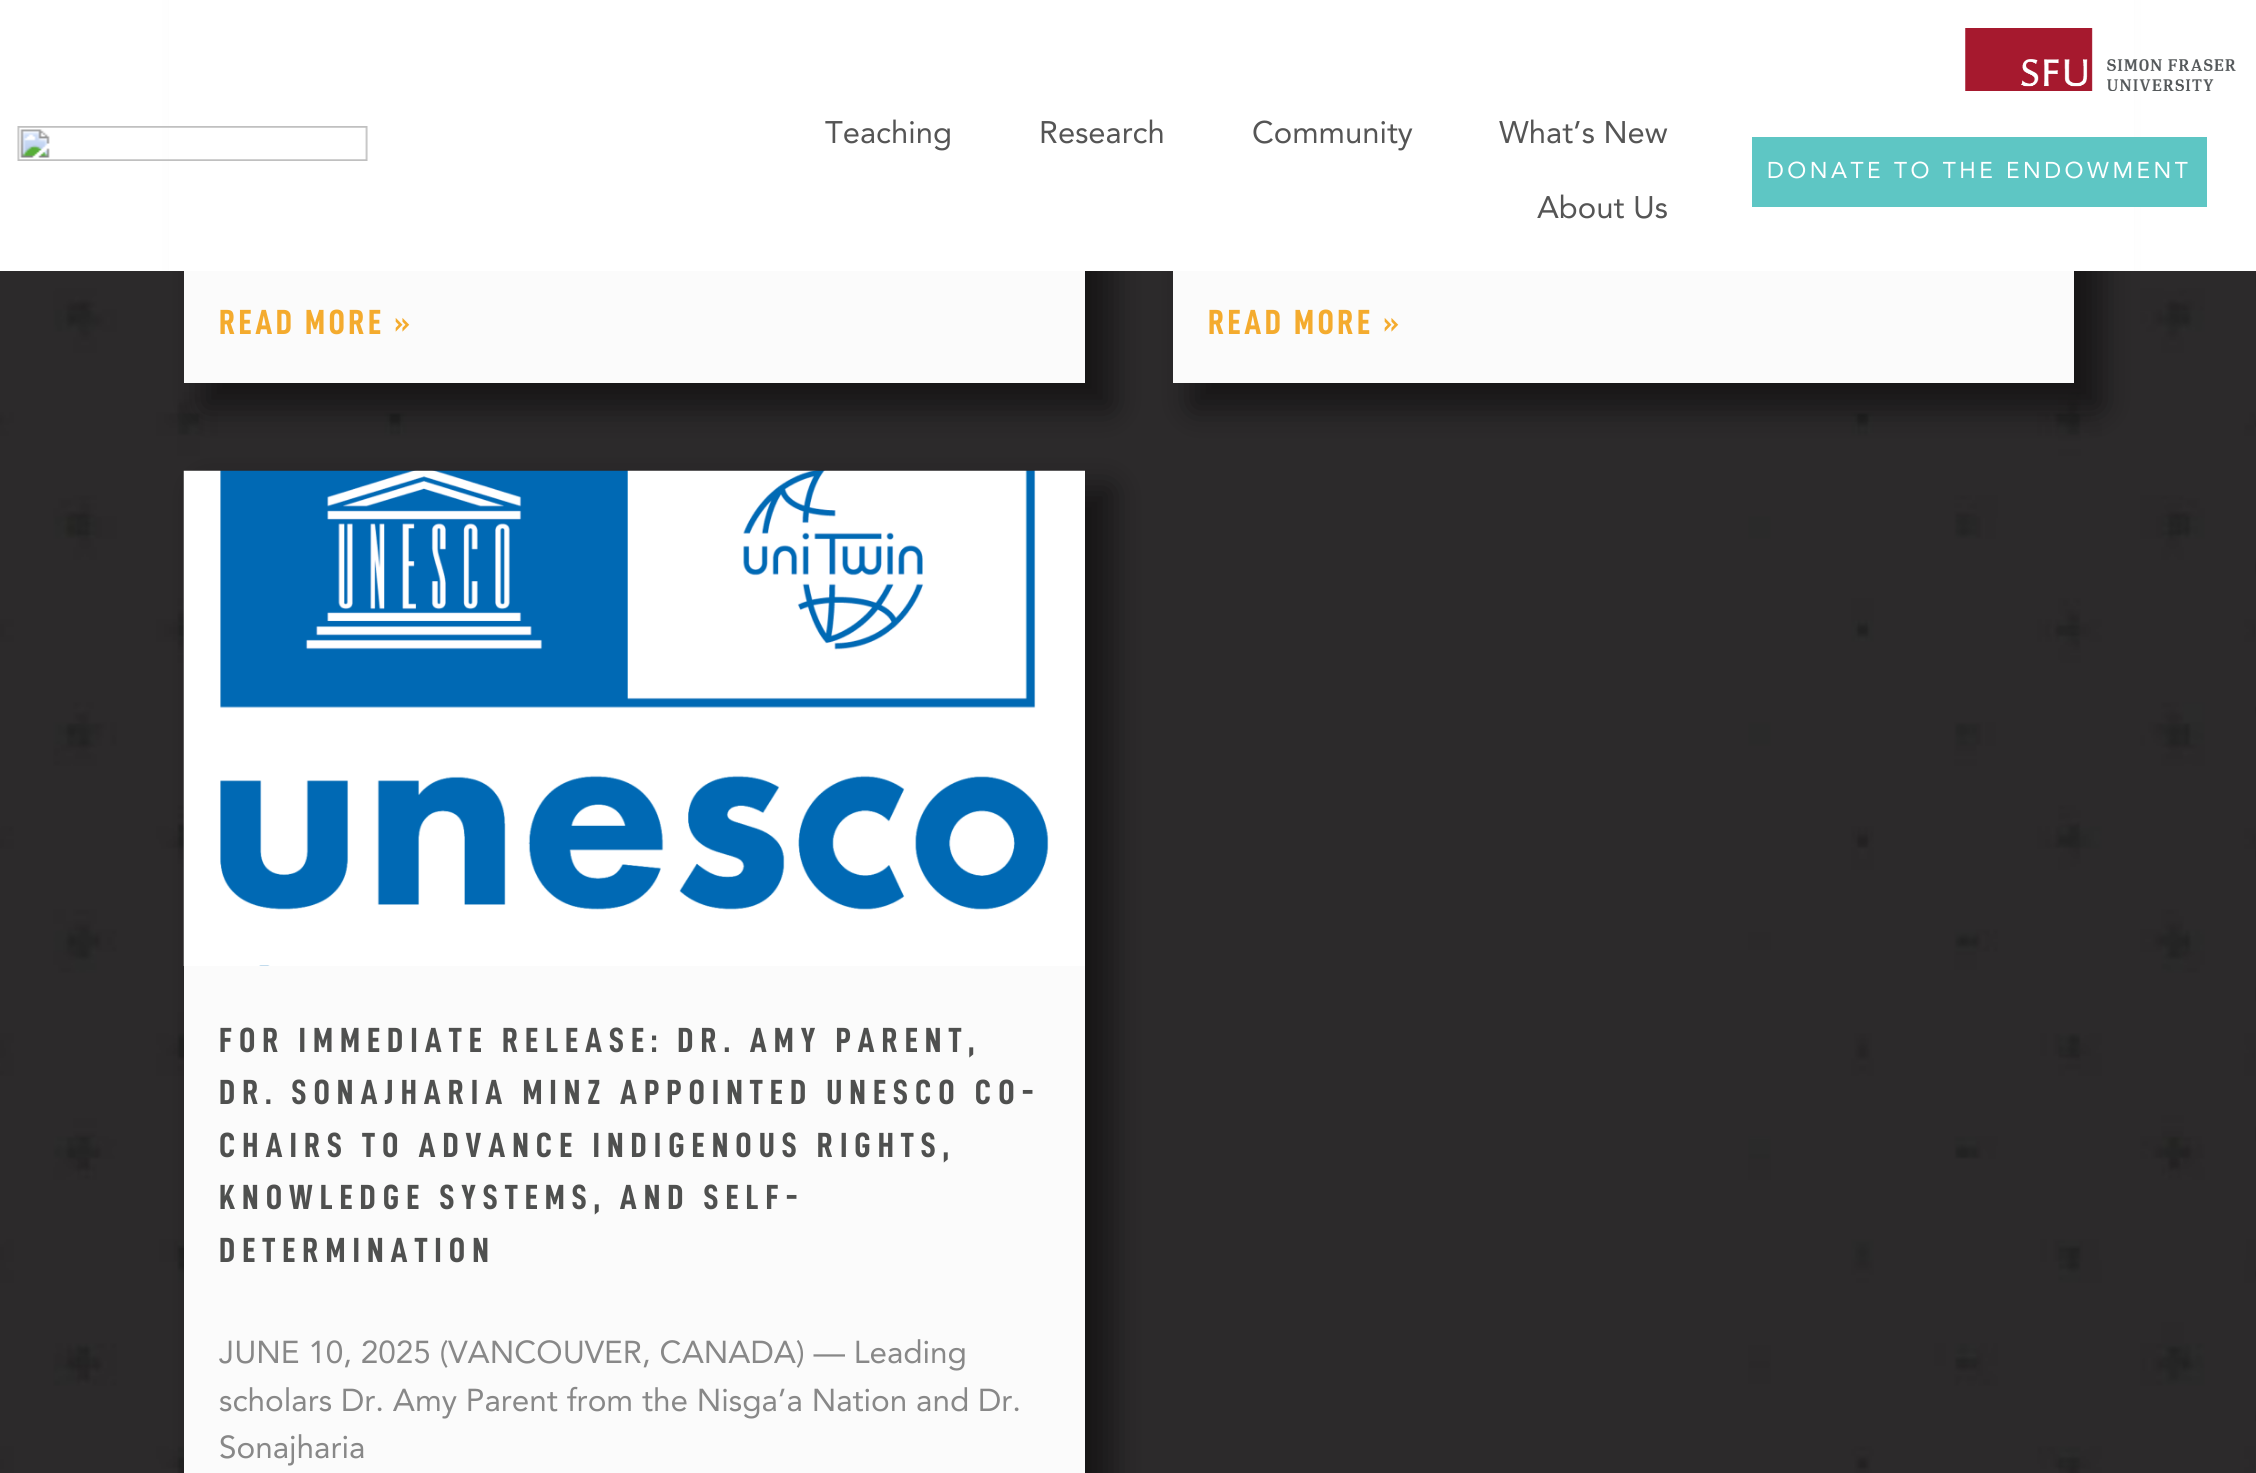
import math
import cairo

surface = cairo.ImageSurface(cairo.FORMAT_RGB24, 2256, 1473)
ctx = cairo.Context(surface)
options = cairo.FontOptions()
options.set_hint_metrics(cairo.HINT_METRICS_OFF)
options.set_hint_style(cairo.HINT_STYLE_NONE)
ctx.set_font_options(options)
ctx.set_miter_limit(4)


def spaced_text(x, y, s, letter, word):
    ctx.move_to(x, y)
    for ch in s:
        ctx.show_text(ch)
        ctx.rel_move_to(letter + word * (ch == ' '), 0)


def round_rect(x, y, w, h, r):
    ctx.new_sub_path()
    for i, (u, v) in enumerate([(x + w - r, y + h - r), (x + r, y + h - r), (x + r, y + r), (x + w - r, y + r)]):
        ctx.arc(u, v, r, i * math.pi / 2, (i + 1) * math.pi / 2)
    ctx.close_path()


def shadow(x, y, w, h, r, blur, alpha):
    ctx.push_group_with_content(cairo.CONTENT_ALPHA)
    ctx.set_operator(cairo.OPERATOR_SOURCE)
    for i in range(15, -16, -2):
        e = blur * i / 6
        if min(w, h) + 2 * e > 0:
            ctx.set_source_rgba(0, 0, 0, alpha * math.erfc((i - 1) / 8.5) / 2)
            round_rect(x - e, y - e, w + 2 * e, h + 2 * e, max(0, min(r + e + blur * .6, min(w, h) / 2 + e)))
            ctx.fill()
    ctx.mask(ctx.pop_group())


def picture(path, x, y, w, h):
    ctx.save()
    ctx.set_source_surface(cairo.ImageSurface.create_from_png(path), x, y)
    ctx.rectangle(x, y, w, h)
    ctx.fill()
    ctx.restore()


ctx.set_source_rgb(1, 1, 1)
ctx.paint()
picture("img1.png", 2255, 271, 1, 1202)
picture("img4.png", 0, 271, 2255, 1202)
ctx.set_source_rgb(0, 0, 0)
shadow(203, -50, 908, 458, 0, 16.5, 0.5)
shadow(1192, -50, 908, 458, 0, 16.5, 0.5)
ctx.set_source_rgb(1, 1, 1)
ctx.rectangle(169, 0, 1965, 271)
ctx.fill()
picture("img2.png", 1965, 28, 271, 63)
picture("img3.png", 17, 126, 351, 35)
ctx.select_font_face("Avenir")
ctx.set_font_size(31)
ctx.set_source_rgb(0.333, 0.333, 0.333)
ctx.move_to(825, 143)
ctx.show_text("Teaching")
ctx.move_to(1039, 143)
ctx.show_text("Research")
ctx.move_to(1252, 143)
ctx.show_text("Community")
ctx.move_to(1499, 143)
ctx.show_text("What’s New")
ctx.move_to(1537, 218)
ctx.show_text("About Us")
ctx.set_source_rgb(0.369, 0.776, 0.769)
ctx.rectangle(1752, 137, 455, 70)
ctx.fill()
ctx.set_font_size(22.75)
ctx.set_source_rgb(1, 1, 1)
spaced_text(1767, 178, "DONATE TO THE ENDOWMENT", 3.5, 0)
ctx.set_source_rgb(0.984, 0.984, 0.984)
ctx.rectangle(184, 271, 901, 112)
ctx.fill()
ctx.select_font_face("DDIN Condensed", cairo.FONT_SLANT_NORMAL, cairo.FONT_WEIGHT_BOLD)
ctx.set_font_size(35)
ctx.set_source_rgb(0.957, 0.671, 0.18)
spaced_text(219, 334, "READ MORE »", 3.5, 0)
ctx.set_source_rgb(0.984, 0.984, 0.984)
ctx.rectangle(1173, 271, 901, 112)
ctx.fill()
ctx.set_source_rgb(0.957, 0.671, 0.18)
spaced_text(1208, 334, "READ MORE »", 3.5, 0)
ctx.set_source_rgb(0, 0, 0)
shadow(203, 488, 908, 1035, 0, 16.5, 0.5)
ctx.set_source_rgb(0.984, 0.984, 0.984)
ctx.rectangle(184, 966, 901, 507)
ctx.fill()
picture("img5.png", 183, 470, 902, 496)
ctx.set_source_rgb(0.31, 0.314, 0.31)
spaced_text(219, 1052, "FOR IMMEDIATE RELEASE: DR. AMY PARENT,", 7, 0)
spaced_text(219, 1104, "DR. SONAJHARIA MINZ APPOINTED UNESCO CO-", 7, 0)
spaced_text(219, 1157, "CHAIRS TO ADVANCE INDIGENOUS RIGHTS,", 7, 0)
spaced_text(219, 1209, "KNOWLEDGE SYSTEMS, AND SELF-", 7, 0)
spaced_text(219, 1262, "DETERMINATION", 7, 0)
ctx.select_font_face("Avenir")
ctx.set_font_size(31.5)
ctx.set_source_rgb(0.533, 0.533, 0.533)
ctx.move_to(219, 1363)
ctx.show_text("JUNE 10, 2025 (VANCOUVER, CANADA) — Leading")
ctx.move_to(219, 1411)
ctx.show_text("scholars Dr. Amy Parent from the Nisga’a Nation and Dr.")
ctx.move_to(219, 1458)
ctx.show_text("Sonajharia")
surface.write_to_png("page.png")
